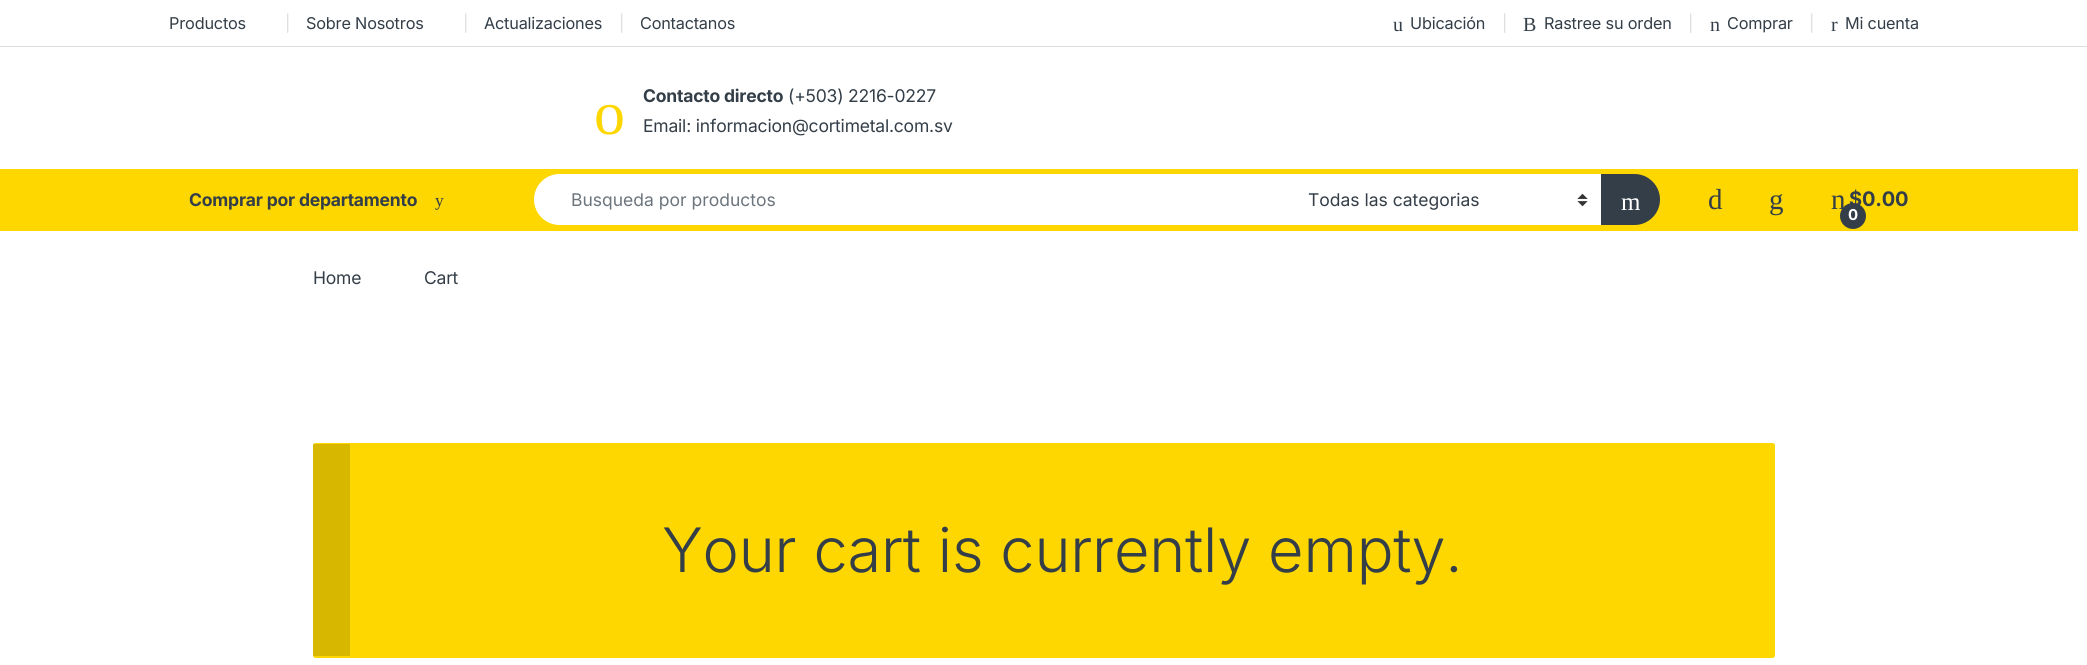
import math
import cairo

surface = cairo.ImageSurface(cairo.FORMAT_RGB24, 2087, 665)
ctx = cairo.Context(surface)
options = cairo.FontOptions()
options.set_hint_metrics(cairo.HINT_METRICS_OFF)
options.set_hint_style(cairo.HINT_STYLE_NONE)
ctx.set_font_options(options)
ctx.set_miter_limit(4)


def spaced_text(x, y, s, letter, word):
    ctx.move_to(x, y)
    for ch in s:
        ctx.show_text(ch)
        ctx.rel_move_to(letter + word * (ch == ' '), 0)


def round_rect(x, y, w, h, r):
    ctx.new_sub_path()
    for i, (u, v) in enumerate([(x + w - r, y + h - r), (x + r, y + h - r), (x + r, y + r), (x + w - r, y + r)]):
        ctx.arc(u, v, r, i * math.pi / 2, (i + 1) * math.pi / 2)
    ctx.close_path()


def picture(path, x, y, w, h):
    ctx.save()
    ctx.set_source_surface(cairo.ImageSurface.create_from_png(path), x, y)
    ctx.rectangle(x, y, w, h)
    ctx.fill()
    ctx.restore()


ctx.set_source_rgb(1, 1, 1)
ctx.paint()
ctx.set_source_rgb(0.867, 0.867, 0.867)
ctx.rectangle(0, 46, 2087, 1)
ctx.fill()
ctx.select_font_face("Inter")
ctx.set_font_size(16.25)
ctx.set_source_rgb(0.2, 0.243, 0.282)
spaced_text(169, 29, "Productos", -0.2, 0)
ctx.set_source_rgb(0.867, 0.867, 0.867)
spaced_text(285, 29, "|", -0.2, 0)
ctx.set_source_rgb(0.2, 0.243, 0.282)
spaced_text(306, 29, "Sobre Nosotros", -0.2, 0)
ctx.set_source_rgb(0.867, 0.867, 0.867)
spaced_text(463, 29, "|", -0.2, 0)
ctx.set_source_rgb(0.2, 0.243, 0.282)
spaced_text(484, 29, "Actualizaciones", -0.2, 0)
ctx.set_source_rgb(0.867, 0.867, 0.867)
spaced_text(619, 29, "|", -0.2, 0)
ctx.set_source_rgb(0.2, 0.243, 0.282)
spaced_text(640, 29, "Contactanos", -0.2, 0)
ctx.select_font_face("Liberation Serif")
ctx.set_font_size(20)
spaced_text(1393, 31, "u", -0.2, 0)
ctx.select_font_face("Inter")
ctx.set_font_size(16.25)
spaced_text(1410, 29, "Ubicación", -0.2, 0)
ctx.set_source_rgb(0.867, 0.867, 0.867)
spaced_text(1502, 29, "|", -0.2, 0)
ctx.select_font_face("Liberation Serif")
ctx.set_font_size(20)
ctx.set_source_rgb(0.2, 0.243, 0.282)
spaced_text(1523, 31, "B", -0.2, 0)
ctx.select_font_face("Inter")
ctx.set_font_size(16.25)
spaced_text(1544, 29, "Rastree su orden", -0.2, 0)
ctx.set_source_rgb(0.867, 0.867, 0.867)
spaced_text(1688, 29, "|", -0.2, 0)
ctx.select_font_face("Liberation Serif")
ctx.set_font_size(20)
ctx.set_source_rgb(0.2, 0.243, 0.282)
spaced_text(1710, 31, "n", -0.2, 0)
ctx.select_font_face("Inter")
ctx.set_font_size(16.25)
spaced_text(1727, 29, "Comprar", -0.2, 0)
ctx.set_source_rgb(0.867, 0.867, 0.867)
spaced_text(1809, 29, "|", -0.2, 0)
ctx.select_font_face("Liberation Serif")
ctx.set_font_size(20)
ctx.set_source_rgb(0.2, 0.243, 0.282)
spaced_text(1831, 31, "r", -0.2, 0)
ctx.select_font_face("Inter")
ctx.set_font_size(16.25)
spaced_text(1845, 29, "Mi cuenta", -0.2, 0)
ctx.select_font_face("Liberation Serif")
ctx.set_font_size(62)
ctx.set_source_rgb(0.996, 0.843, 0)
spaced_text(594, 134, "o", -0.2, 0)
ctx.select_font_face("Inter", cairo.FONT_SLANT_NORMAL, cairo.FONT_WEIGHT_BOLD)
ctx.set_font_size(17.5)
ctx.set_source_rgb(0.2, 0.243, 0.282)
spaced_text(643, 102, "Contacto directo", -0.2, 0)
ctx.select_font_face("Inter")
spaced_text(788, 102, "(+503) 2216-0227", -0.2, 0)
spaced_text(643, 132, "Email: informacion@cortimetal.com.sv", -0.2, 0)
ctx.set_source_rgb(0.996, 0.843, 0)
ctx.rectangle(0, 169, 2078, 62)
ctx.fill()
ctx.select_font_face("Inter", cairo.FONT_SLANT_NORMAL, cairo.FONT_WEIGHT_BOLD)
ctx.set_source_rgb(0.2, 0.243, 0.282)
spaced_text(189, 206, "Comprar por departamento", -0.2, 0)
ctx.select_font_face("Liberation Serif")
spaced_text(435, 206, "y", -0.2, 0)
ctx.set_source_rgb(1, 1, 1)
ctx.new_path()
ctx.move_to(559.5, 174)
ctx.line_to(1294, 174)
ctx.line_to(1294, 225)
ctx.line_to(559.5, 225)
ctx.curve_to(545.5, 225, 534, 213.5, 534, 199.5)
ctx.curve_to(534, 185.5, 545.5, 174, 559.5, 174)
ctx.close_path()
ctx.fill()
ctx.select_font_face("Inter")
ctx.set_source_rgb(0.424, 0.459, 0.49)
ctx.move_to(571, 206)
ctx.show_text("Busqueda por productos")
ctx.set_source_rgb(1, 1, 1)
ctx.rectangle(1294, 174, 307, 51)
ctx.fill()
picture("img1.png", 1577, 193, 11, 14)
ctx.set_source_rgb(0.2, 0.243, 0.282)
ctx.move_to(1308, 206)
ctx.show_text("Todas las categorias")
ctx.new_path()
ctx.move_to(1601, 174)
ctx.line_to(1634.5, 174)
ctx.curve_to(1648.5, 174, 1660, 185.5, 1660, 199.5)
ctx.curve_to(1660, 213.5, 1648.5, 225, 1634.5, 225)
ctx.line_to(1601, 225)
ctx.close_path()
ctx.fill()
ctx.select_font_face("Liberation Serif")
ctx.set_font_size(25)
ctx.set_source_rgb(1, 1, 1)
ctx.move_to(1621, 210)
ctx.show_text("m")
ctx.set_font_size(29)
ctx.set_source_rgb(0.2, 0.243, 0.282)
spaced_text(1708, 209, "d", -0.2, 0)
spaced_text(1769, 209, "g", -0.2, 0)
spaced_text(1831, 209, "n", -0.2, 0)
ctx.select_font_face("Inter", cairo.FONT_SLANT_NORMAL, cairo.FONT_WEIGHT_BOLD)
ctx.set_font_size(20)
spaced_text(1849, 206, "$0.00", -0.2, 0)
ctx.new_path()
ctx.arc(1853, 216, 13, 0, 2 * math.pi)
ctx.fill()
ctx.set_font_size(15)
ctx.set_source_rgb(1, 1, 1)
spaced_text(1848, 220, "0", -0.2, 0)
ctx.select_font_face("Inter")
ctx.set_font_size(17.5)
ctx.set_source_rgb(0.2, 0.243, 0.282)
spaced_text(313, 284, "Home", -0.2, 0)
spaced_text(424, 284, "Cart", -0.2, 0)
ctx.set_source_rgb(0.996, 0.843, 0)
round_rect(313, 443, 1462, 215, 2.5)
ctx.fill()
ctx.set_source_rgba(0, 0, 0, 0.15)
ctx.rectangle(313, 444, 37, 212)
ctx.fill()
ctx.select_font_face("Inter Light")
ctx.set_font_size(61.25)
ctx.set_source_rgb(0.2, 0.243, 0.282)
spaced_text(662, 572, "Your cart is currently empty.", -0.2, 0)
surface.write_to_png("page.png")
